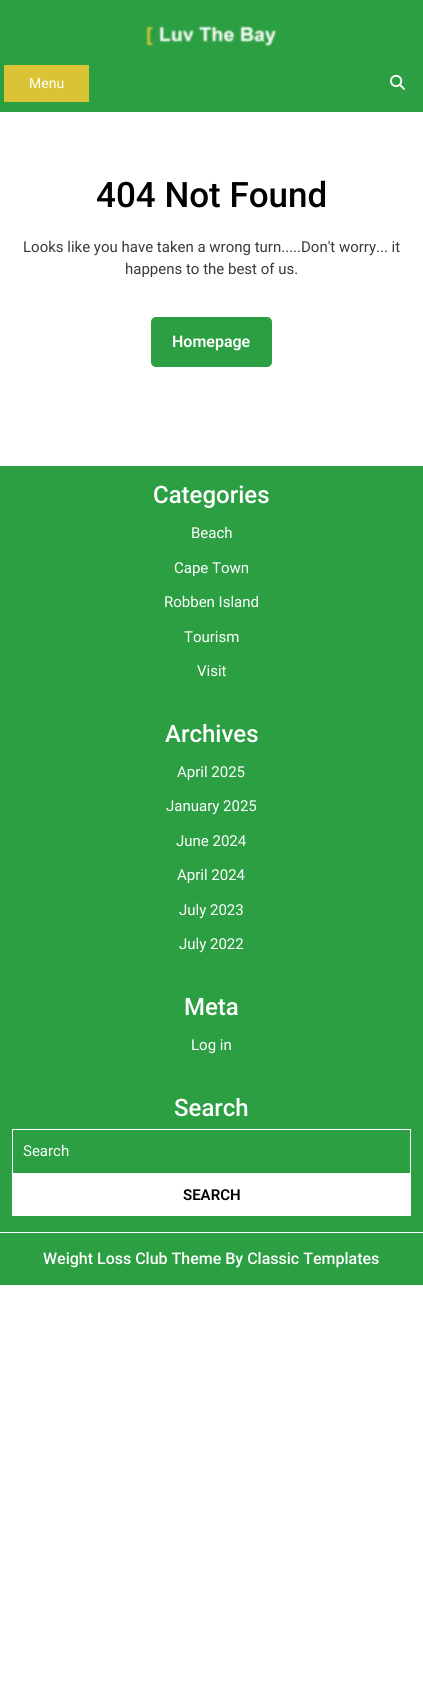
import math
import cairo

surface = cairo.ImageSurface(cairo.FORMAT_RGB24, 423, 1692)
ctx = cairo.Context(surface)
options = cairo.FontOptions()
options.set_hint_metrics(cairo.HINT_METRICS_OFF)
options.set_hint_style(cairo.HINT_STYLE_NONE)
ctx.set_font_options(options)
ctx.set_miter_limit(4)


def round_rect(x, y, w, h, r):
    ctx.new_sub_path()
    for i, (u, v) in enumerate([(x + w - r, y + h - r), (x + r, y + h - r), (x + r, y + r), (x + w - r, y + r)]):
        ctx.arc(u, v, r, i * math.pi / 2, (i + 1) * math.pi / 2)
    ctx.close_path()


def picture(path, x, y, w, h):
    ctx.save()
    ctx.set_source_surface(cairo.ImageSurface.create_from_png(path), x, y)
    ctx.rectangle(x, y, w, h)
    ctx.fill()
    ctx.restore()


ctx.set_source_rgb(1, 1, 1)
ctx.paint()
ctx.set_source_rgb(0.173, 0.624, 0.263)
ctx.rectangle(0, 0, 423, 112)
ctx.fill()
picture("img1.png", 146, 26, 131, 21)
ctx.set_source_rgb(0.855, 0.769, 0.212)
ctx.rectangle(4, 65, 85, 37)
ctx.fill()
ctx.select_font_face("Roboto")
ctx.set_font_size(14)
ctx.set_source_rgb(1, 1, 1)
ctx.move_to(29, 88)
ctx.show_text("Menu")
picture("img2.png", 390, 74, 15, 16)
ctx.select_font_face("Roboto Medium")
ctx.set_font_size(35)
ctx.set_source_rgb(0, 0, 0)
ctx.move_to(96, 207)
ctx.show_text("404 Not Found")
ctx.select_font_face("Roboto")
ctx.set_font_size(15)
ctx.set_source_rgb(0.227, 0.227, 0.227)
ctx.move_to(23, 252)
ctx.show_text("Looks like you have taken a wrong turn.....Don't worry... it")
ctx.move_to(125, 274)
ctx.show_text("happens to the best of us.")
ctx.set_source_rgb(0.173, 0.624, 0.263)
round_rect(151, 317, 121, 50, 5)
ctx.fill()
ctx.select_font_face("Roboto SemiBold")
ctx.set_font_size(16)
ctx.set_source_rgb(1, 1, 1)
ctx.move_to(172, 347)
ctx.show_text("Homepage")
ctx.set_source_rgb(0.173, 0.624, 0.263)
ctx.rectangle(0, 466, 423, 819)
ctx.fill()
ctx.select_font_face("Roboto Medium")
ctx.set_font_size(24)
ctx.set_source_rgb(1, 1, 1)
ctx.move_to(153, 503)
ctx.show_text("Categories")
ctx.select_font_face("Roboto")
ctx.set_font_size(15)
ctx.move_to(191, 538)
ctx.show_text("Beach")
ctx.move_to(174, 573)
ctx.show_text("Cape Town")
ctx.move_to(164, 607)
ctx.show_text("Robben Island")
ctx.move_to(184, 642)
ctx.show_text("Tourism")
ctx.move_to(197, 676)
ctx.show_text("Visit")
ctx.select_font_face("Roboto Medium")
ctx.set_font_size(24)
ctx.move_to(165, 742)
ctx.show_text("Archives")
ctx.select_font_face("Roboto")
ctx.set_font_size(15)
ctx.move_to(177, 777)
ctx.show_text("April 2025")
ctx.move_to(166, 811)
ctx.show_text("January 2025")
ctx.move_to(176, 846)
ctx.show_text("June 2024")
ctx.move_to(177, 880)
ctx.show_text("April 2024")
ctx.move_to(179, 915)
ctx.show_text("July 2023")
ctx.move_to(179, 949)
ctx.show_text("July 2022")
ctx.select_font_face("Roboto Medium")
ctx.set_font_size(24)
ctx.move_to(184, 1015)
ctx.show_text("Meta")
ctx.select_font_face("Roboto")
ctx.set_font_size(15)
ctx.move_to(191, 1050)
ctx.show_text("Log in")
ctx.select_font_face("Roboto Medium")
ctx.set_font_size(24)
ctx.move_to(174, 1116)
ctx.show_text("Search")
ctx.rectangle(12.5, 1129.5, 398, 44)
ctx.set_line_width(1)
ctx.stroke()
ctx.select_font_face("Roboto")
ctx.set_font_size(15)
ctx.move_to(23, 1156)
ctx.show_text("Search")
ctx.rectangle(12, 1174, 399, 42)
ctx.fill()
ctx.select_font_face("Roboto SemiBold")
ctx.set_source_rgb(0, 0, 0)
ctx.move_to(183, 1200)
ctx.show_text("SEARCH")
ctx.set_source_rgb(1, 1, 1)
ctx.rectangle(0, 1232, 423, 1)
ctx.fill()
ctx.select_font_face("Roboto Medium")
ctx.set_font_size(16)
ctx.move_to(43, 1264)
ctx.show_text("Weight Loss Club Theme By Classic Templates")
surface.write_to_png("page.png")
